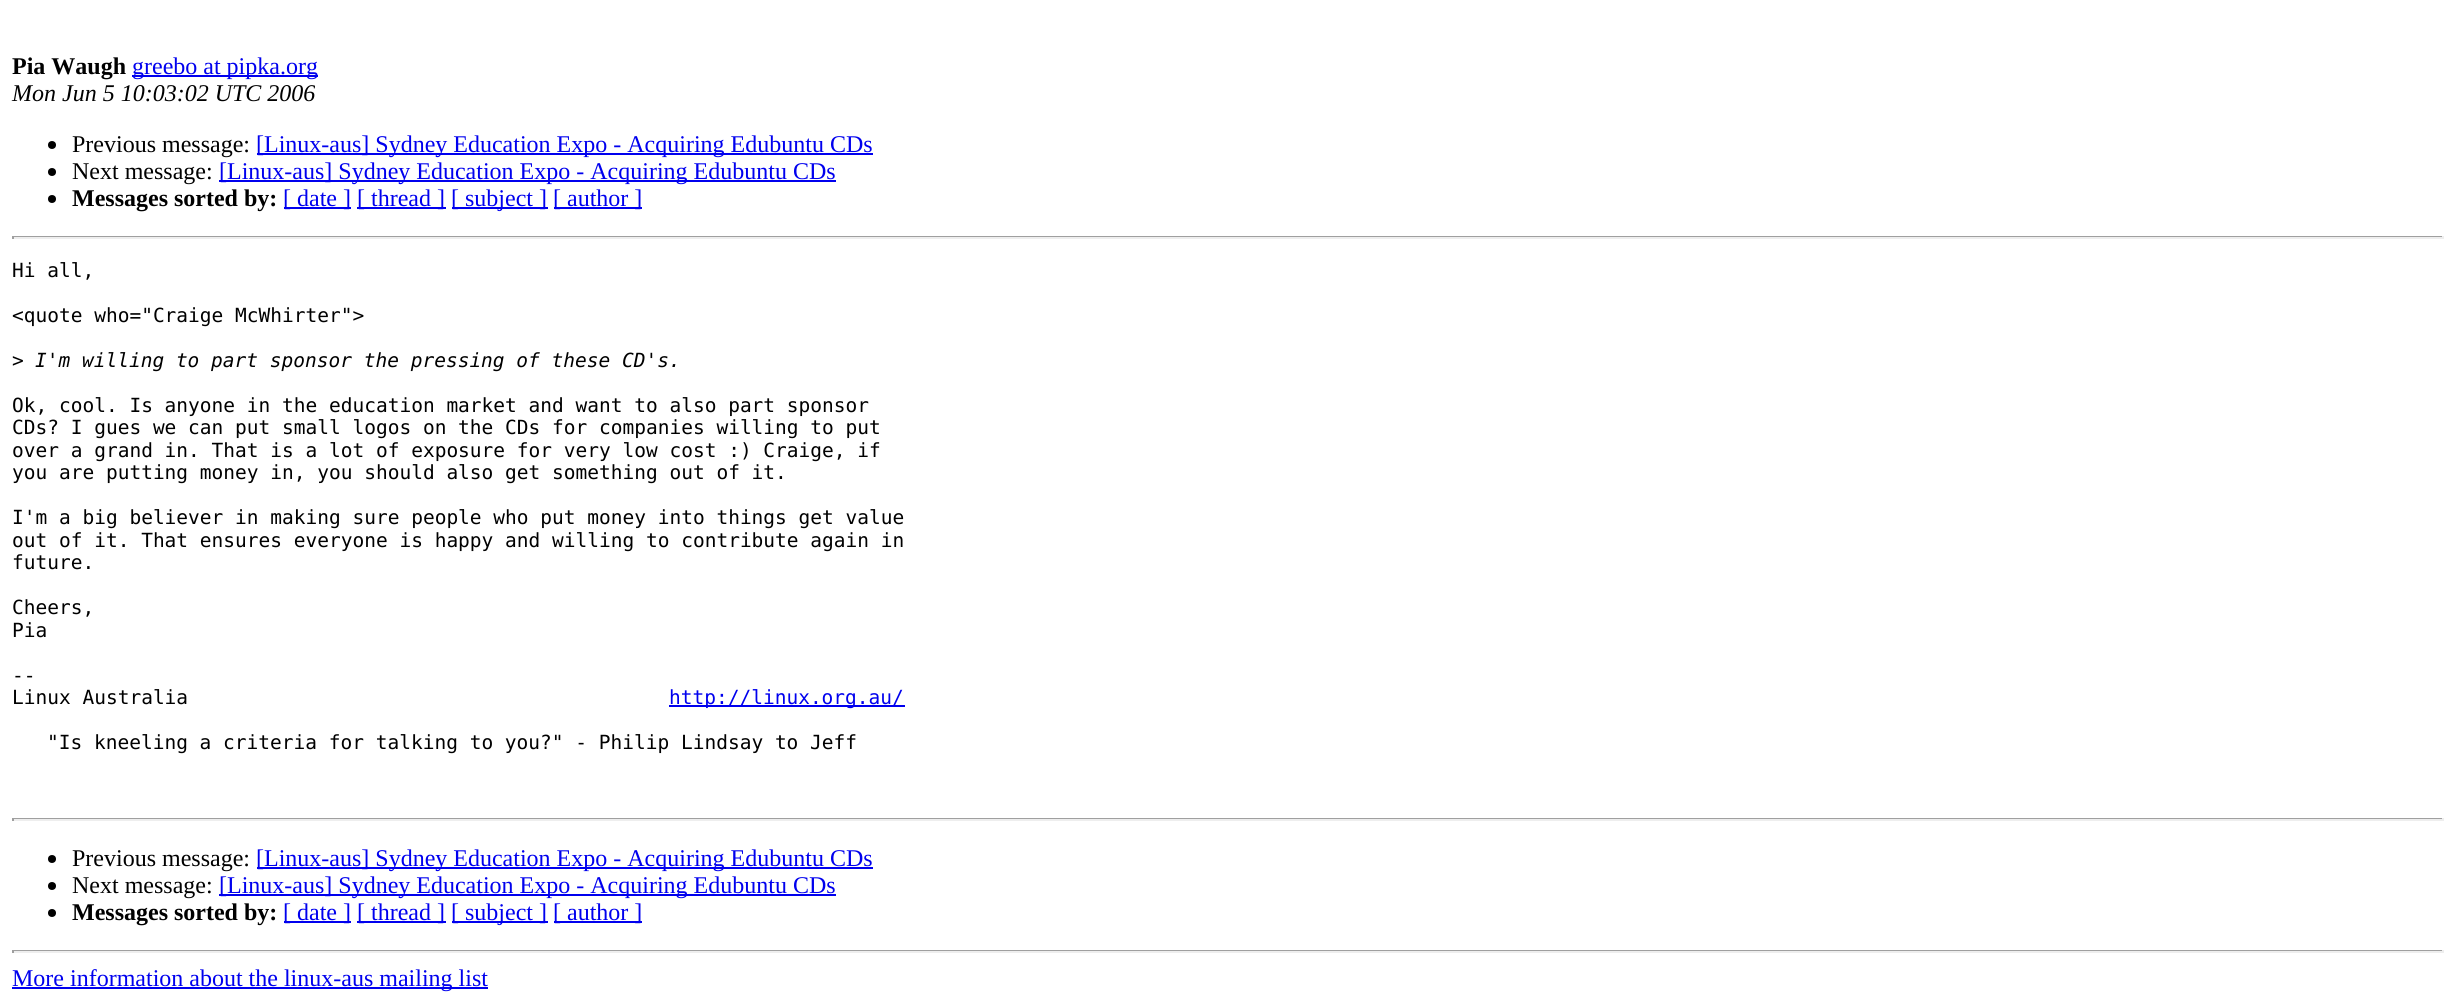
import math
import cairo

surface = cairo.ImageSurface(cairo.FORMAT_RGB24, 2455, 996)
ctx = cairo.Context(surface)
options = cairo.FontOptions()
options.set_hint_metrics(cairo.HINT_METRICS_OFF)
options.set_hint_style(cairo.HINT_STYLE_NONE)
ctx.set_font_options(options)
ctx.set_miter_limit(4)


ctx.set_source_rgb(1, 1, 1)
ctx.paint()
ctx.select_font_face("Liberation Serif", cairo.FONT_SLANT_NORMAL, cairo.FONT_WEIGHT_BOLD)
ctx.set_font_size(24)
ctx.set_source_rgb(0, 0, 0)
ctx.move_to(12, 74)
ctx.show_text("Pia Waugh")
ctx.set_source_rgb(0, 0, 0.933)
ctx.rectangle(132, 75, 186, 2)
ctx.fill()
ctx.select_font_face("Liberation Serif")
ctx.move_to(132, 74)
ctx.show_text("greebo at pipka.org")
ctx.select_font_face("Liberation Serif", cairo.FONT_SLANT_ITALIC)
ctx.set_source_rgb(0, 0, 0)
ctx.move_to(12, 101)
ctx.show_text("Mon Jun 5 10:03:02 UTC 2006")
ctx.new_path()
ctx.arc(52, 145, 4, 0, 2 * math.pi)
ctx.fill()
ctx.select_font_face("Liberation Serif")
ctx.move_to(72, 152)
ctx.show_text("Previous message:")
ctx.set_source_rgb(0, 0, 0.933)
ctx.rectangle(257, 153, 616, 2)
ctx.fill()
ctx.move_to(256, 152)
ctx.show_text("[Linux-aus] Sydney Education Expo - Acquiring Edubuntu CDs")
ctx.set_source_rgb(0, 0, 0)
ctx.new_path()
ctx.arc(52, 172, 4, 0, 2 * math.pi)
ctx.fill()
ctx.move_to(72, 179)
ctx.show_text("Next message:")
ctx.set_source_rgb(0, 0, 0.933)
ctx.rectangle(219, 180, 617, 2)
ctx.fill()
ctx.move_to(219, 179)
ctx.show_text("[Linux-aus] Sydney Education Expo - Acquiring Edubuntu CDs")
ctx.set_source_rgb(0, 0, 0)
ctx.new_path()
ctx.arc(52, 199, 4, 0, 2 * math.pi)
ctx.fill()
ctx.select_font_face("Liberation Serif", cairo.FONT_SLANT_NORMAL, cairo.FONT_WEIGHT_BOLD)
ctx.move_to(72, 206)
ctx.show_text("Messages sorted by:")
ctx.set_source_rgb(0, 0, 0.933)
ctx.rectangle(284, 207, 67, 2)
ctx.fill()
ctx.select_font_face("Liberation Serif")
ctx.move_to(283, 206)
ctx.show_text("[ date ]")
ctx.rectangle(357, 207, 89, 2)
ctx.fill()
ctx.move_to(357, 206)
ctx.show_text("[ thread ]")
ctx.rectangle(452, 207, 96, 2)
ctx.fill()
ctx.move_to(451, 206)
ctx.show_text("[ subject ]")
ctx.rectangle(554, 207, 88, 2)
ctx.fill()
ctx.move_to(553, 206)
ctx.show_text("[ author ]")
ctx.set_source_rgb(0.624, 0.624, 0.624)
ctx.rectangle(12, 236, 2432, 1)
ctx.fill()
ctx.set_source_rgb(0.933, 0.933, 0.933)
ctx.rectangle(2442, 236, 2, 3)
ctx.fill()
ctx.rectangle(12, 237, 2432, 2)
ctx.fill()
ctx.set_source_rgb(0.624, 0.624, 0.624)
ctx.rectangle(12, 236, 2, 3)
ctx.fill()
ctx.select_font_face("DejaVu Sans Mono")
ctx.set_font_size(19.5)
ctx.set_source_rgb(0, 0, 0)
ctx.move_to(12, 277)
ctx.show_text("Hi all,")
ctx.move_to(12, 322)
ctx.show_text("<quote who=\"Craige McWhirter\">")
ctx.move_to(12, 367)
ctx.show_text(">")
ctx.select_font_face("DejaVu Sans Mono", cairo.FONT_SLANT_ITALIC)
ctx.move_to(35, 367)
ctx.show_text("I'm willing to part sponsor the pressing of these CD's.")
ctx.select_font_face("DejaVu Sans Mono")
ctx.move_to(12, 412)
ctx.show_text("Ok, cool. Is anyone in the education market and want to also part sponsor")
ctx.move_to(12, 434)
ctx.show_text("CDs? I gues we can put small logos on the CDs for companies willing to put")
ctx.move_to(12, 457)
ctx.show_text("over a grand in. That is a lot of exposure for very low cost :) Craige, if")
ctx.move_to(12, 479)
ctx.show_text("you are putting money in, you should also get something out of it.")
ctx.move_to(12, 524)
ctx.show_text("I'm a big believer in making sure people who put money into things get value")
ctx.move_to(12, 547)
ctx.show_text("out of it. That ensures everyone is happy and willing to contribute again in")
ctx.move_to(12, 569)
ctx.show_text("future.")
ctx.move_to(12, 614)
ctx.show_text("Cheers,")
ctx.move_to(12, 637)
ctx.show_text("Pia")
ctx.move_to(12, 682)
ctx.show_text("--")
ctx.move_to(12, 704)
ctx.show_text("Linux Australia")
ctx.set_source_rgb(0, 0, 0.933)
ctx.rectangle(669, 705, 236, 2)
ctx.fill()
ctx.move_to(669, 704)
ctx.show_text("http://linux.org.au/")
ctx.set_source_rgb(0, 0, 0)
ctx.move_to(47, 749)
ctx.show_text("\"Is kneeling a criteria for talking to you?\" - Philip Lindsay to Jeff")
ctx.set_source_rgb(0.624, 0.624, 0.624)
ctx.rectangle(12, 818, 2432, 1)
ctx.fill()
ctx.set_source_rgb(0.933, 0.933, 0.933)
ctx.rectangle(2442, 818, 2, 3)
ctx.fill()
ctx.rectangle(12, 819, 2432, 2)
ctx.fill()
ctx.set_source_rgb(0.624, 0.624, 0.624)
ctx.rectangle(12, 818, 2, 3)
ctx.fill()
ctx.set_source_rgb(0, 0, 0)
ctx.arc(52, 859, 4, 0, 2 * math.pi)
ctx.fill()
ctx.select_font_face("Liberation Serif")
ctx.set_font_size(24)
ctx.move_to(72, 866)
ctx.show_text("Previous message:")
ctx.set_source_rgb(0, 0, 0.933)
ctx.rectangle(257, 867, 616, 2)
ctx.fill()
ctx.move_to(256, 866)
ctx.show_text("[Linux-aus] Sydney Education Expo - Acquiring Edubuntu CDs")
ctx.set_source_rgb(0, 0, 0)
ctx.new_path()
ctx.arc(52, 886, 4, 0, 2 * math.pi)
ctx.fill()
ctx.move_to(72, 893)
ctx.show_text("Next message:")
ctx.set_source_rgb(0, 0, 0.933)
ctx.rectangle(219, 894, 617, 2)
ctx.fill()
ctx.move_to(219, 893)
ctx.show_text("[Linux-aus] Sydney Education Expo - Acquiring Edubuntu CDs")
ctx.set_source_rgb(0, 0, 0)
ctx.new_path()
ctx.arc(52, 913, 4, 0, 2 * math.pi)
ctx.fill()
ctx.select_font_face("Liberation Serif", cairo.FONT_SLANT_NORMAL, cairo.FONT_WEIGHT_BOLD)
ctx.move_to(72, 920)
ctx.show_text("Messages sorted by:")
ctx.set_source_rgb(0, 0, 0.933)
ctx.rectangle(284, 921, 67, 2)
ctx.fill()
ctx.select_font_face("Liberation Serif")
ctx.move_to(283, 920)
ctx.show_text("[ date ]")
ctx.rectangle(357, 921, 89, 2)
ctx.fill()
ctx.move_to(357, 920)
ctx.show_text("[ thread ]")
ctx.rectangle(452, 921, 96, 2)
ctx.fill()
ctx.move_to(451, 920)
ctx.show_text("[ subject ]")
ctx.rectangle(554, 921, 88, 2)
ctx.fill()
ctx.move_to(553, 920)
ctx.show_text("[ author ]")
ctx.set_source_rgb(0.624, 0.624, 0.624)
ctx.rectangle(12, 950, 2432, 1)
ctx.fill()
ctx.set_source_rgb(0.933, 0.933, 0.933)
ctx.rectangle(2442, 950, 2, 3)
ctx.fill()
ctx.rectangle(12, 951, 2432, 2)
ctx.fill()
ctx.set_source_rgb(0.624, 0.624, 0.624)
ctx.rectangle(12, 950, 2, 3)
ctx.fill()
ctx.set_source_rgb(0, 0, 0.933)
ctx.rectangle(12, 987, 476, 2)
ctx.fill()
ctx.move_to(12, 986)
ctx.show_text("More information about the linux-aus mailing list")
surface.write_to_png("page.png")
